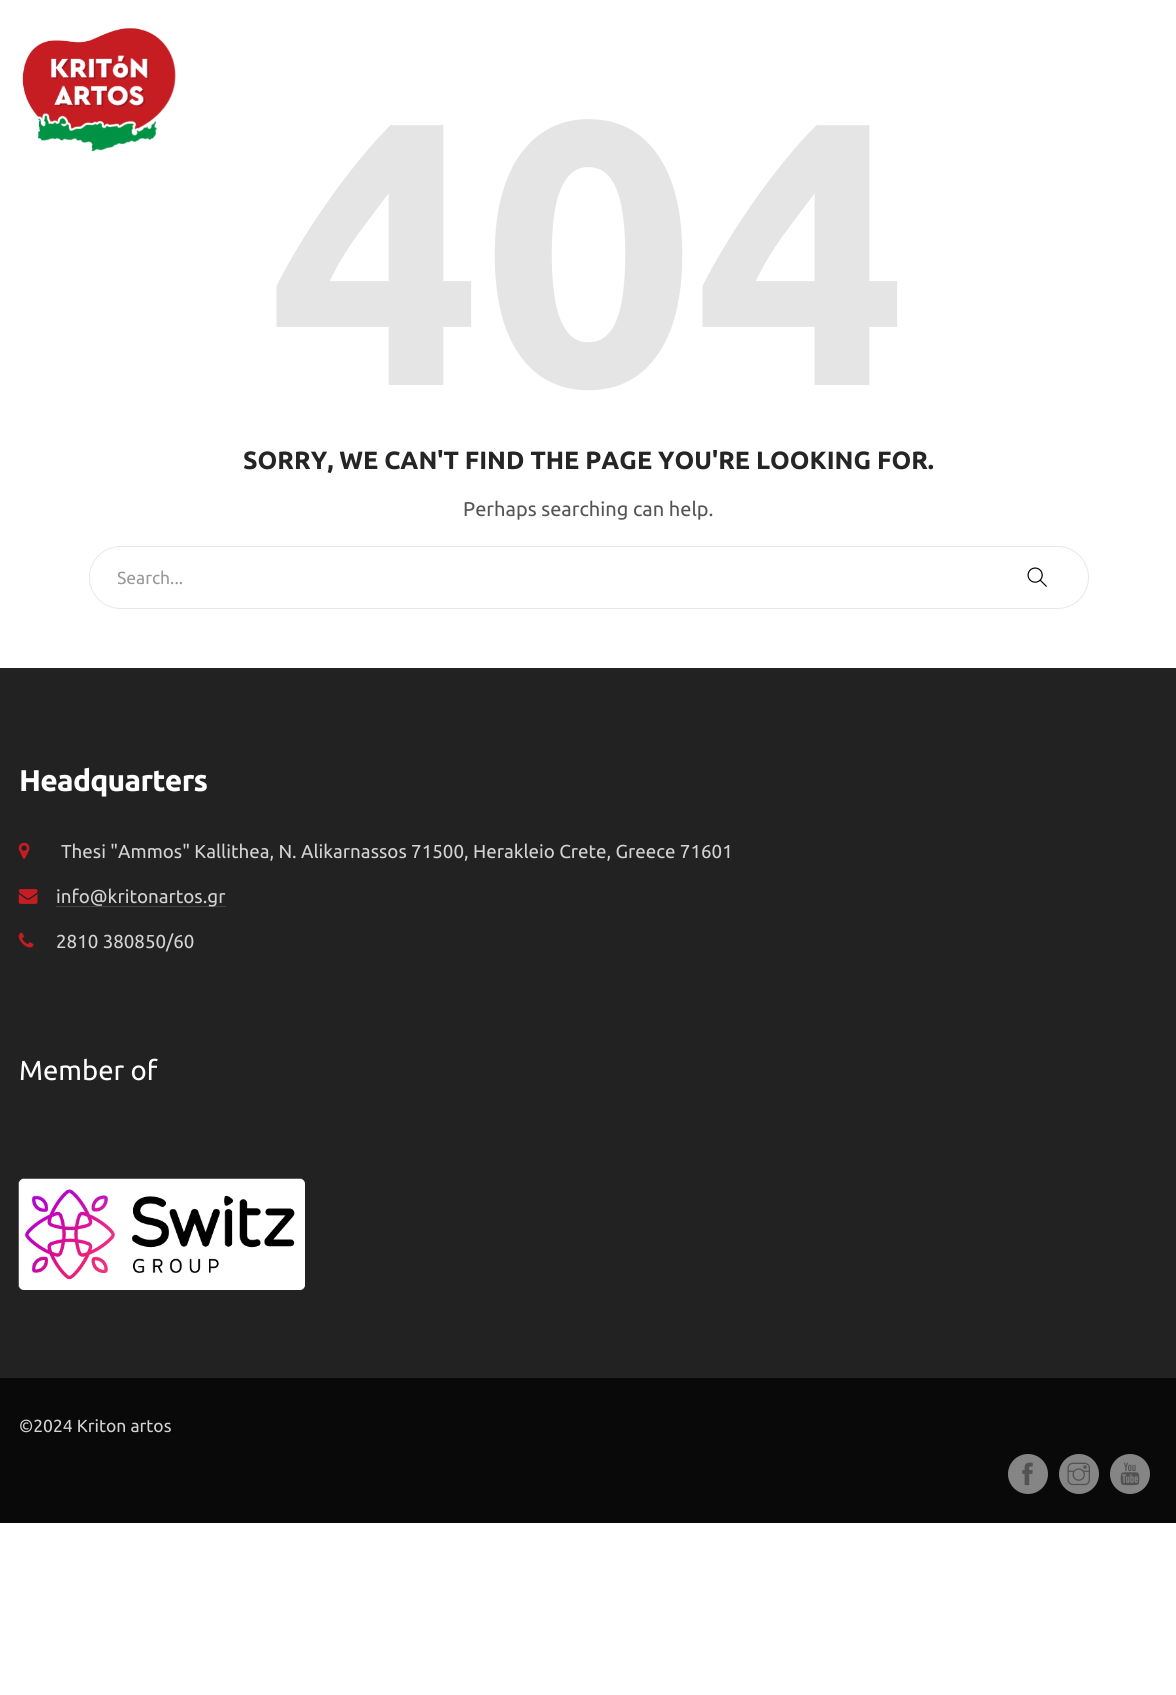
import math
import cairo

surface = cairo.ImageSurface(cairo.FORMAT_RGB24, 1176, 1695)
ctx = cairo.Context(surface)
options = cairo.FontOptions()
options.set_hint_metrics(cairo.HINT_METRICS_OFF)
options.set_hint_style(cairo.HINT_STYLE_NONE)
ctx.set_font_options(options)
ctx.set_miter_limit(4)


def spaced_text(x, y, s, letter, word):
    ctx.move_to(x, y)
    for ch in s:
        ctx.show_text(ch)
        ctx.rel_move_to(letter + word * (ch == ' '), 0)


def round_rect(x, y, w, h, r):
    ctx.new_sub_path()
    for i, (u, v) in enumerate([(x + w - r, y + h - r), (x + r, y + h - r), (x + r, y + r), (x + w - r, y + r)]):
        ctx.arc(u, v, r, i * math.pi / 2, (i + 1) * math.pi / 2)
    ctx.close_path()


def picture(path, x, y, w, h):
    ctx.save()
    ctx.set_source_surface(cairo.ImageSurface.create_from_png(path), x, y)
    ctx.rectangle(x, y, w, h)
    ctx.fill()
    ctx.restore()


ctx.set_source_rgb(1, 1, 1)
ctx.paint()
picture("img1.png", 22, 28, 154, 124)
ctx.select_font_face("Ubuntu", cairo.FONT_SLANT_NORMAL, cairo.FONT_WEIGHT_BOLD)
ctx.set_font_size(375)
ctx.set_source_rgb(0.898, 0.898, 0.898)
ctx.move_to(269, 385)
ctx.show_text("404")
ctx.set_font_size(25)
ctx.set_source_rgb(0.145, 0.145, 0.145)
ctx.move_to(243, 469)
ctx.show_text("SORRY, WE CAN'T FIND THE PAGE YOU'RE LOOKING FOR.")
ctx.select_font_face("Ubuntu")
ctx.set_font_size(20)
ctx.set_source_rgb(0.333, 0.333, 0.333)
ctx.move_to(463, 516)
ctx.show_text("Perhaps searching can help.")
round_rect(89.5, 546.5, 999, 62, 31)
ctx.set_source_rgb(0.91, 0.91, 0.91)
ctx.set_line_width(1)
ctx.stroke()
ctx.save()
ctx.rectangle(118, 568, 907, 20)
ctx.clip()
ctx.set_font_size(17.5)
ctx.set_source_rgb(0.6, 0.6, 0.6)
ctx.move_to(117, 584)
ctx.show_text("Search...")
ctx.restore()
picture("img2.png", 1027, 567, 20, 20)
ctx.set_source_rgb(0.133, 0.133, 0.133)
ctx.rectangle(0, 668, 1176, 710)
ctx.fill()
ctx.select_font_face("Ubuntu", cairo.FONT_SLANT_NORMAL, cairo.FONT_WEIGHT_BOLD)
ctx.set_font_size(30)
ctx.set_source_rgb(1, 1, 1)
spaced_text(19, 791, "Headquarters", -0.75, 0)
picture("img3.png", 18, 842, 12, 17)
ctx.select_font_face("Ubuntu")
ctx.set_font_size(18.75)
ctx.set_source_rgb(0.827, 0.827, 0.827)
ctx.move_to(61, 858)
ctx.show_text("Thesi \"Ammos\" Kallithea, N. Alikarnassos 71500, Herakleio Crete, Greece 71601")
picture("img4.png", 18, 889, 20, 15)
ctx.set_source_rgb(0.267, 0.267, 0.267)
ctx.rectangle(56, 906, 170, 1)
ctx.fill()
ctx.set_source_rgb(0.827, 0.827, 0.827)
ctx.move_to(56, 903)
ctx.show_text("info@kritonartos.gr")
picture("img5.png", 18, 932, 16, 16)
ctx.move_to(56, 948)
ctx.show_text("2810 380850/60")
ctx.set_font_size(27.5)
ctx.set_source_rgb(1, 1, 1)
ctx.move_to(19, 1080)
ctx.show_text("Member of")
picture("img6.png", 18, 1178, 287, 112)
ctx.set_source_rgb(0.039, 0.039, 0.039)
ctx.rectangle(0, 1378, 1176, 145)
ctx.fill()
ctx.set_font_size(17.5)
ctx.set_source_rgb(0.827, 0.827, 0.827)
ctx.move_to(19, 1432)
ctx.show_text("©2024 Kriton artos")
ctx.set_source_rgb(0.522, 0.522, 0.522)
ctx.new_path()
ctx.arc(1028, 1474, 20, 0, 2 * math.pi)
ctx.fill()
picture("img7.png", 1022, 1462, 11, 24)
ctx.arc(1079, 1474, 20, 0, 2 * math.pi)
ctx.fill()
picture("img8.png", 1067, 1462, 23, 24)
ctx.arc(1130, 1474, 20, 0, 2 * math.pi)
ctx.fill()
picture("img9.png", 1120, 1462, 20, 24)
surface.write_to_png("page.png")
